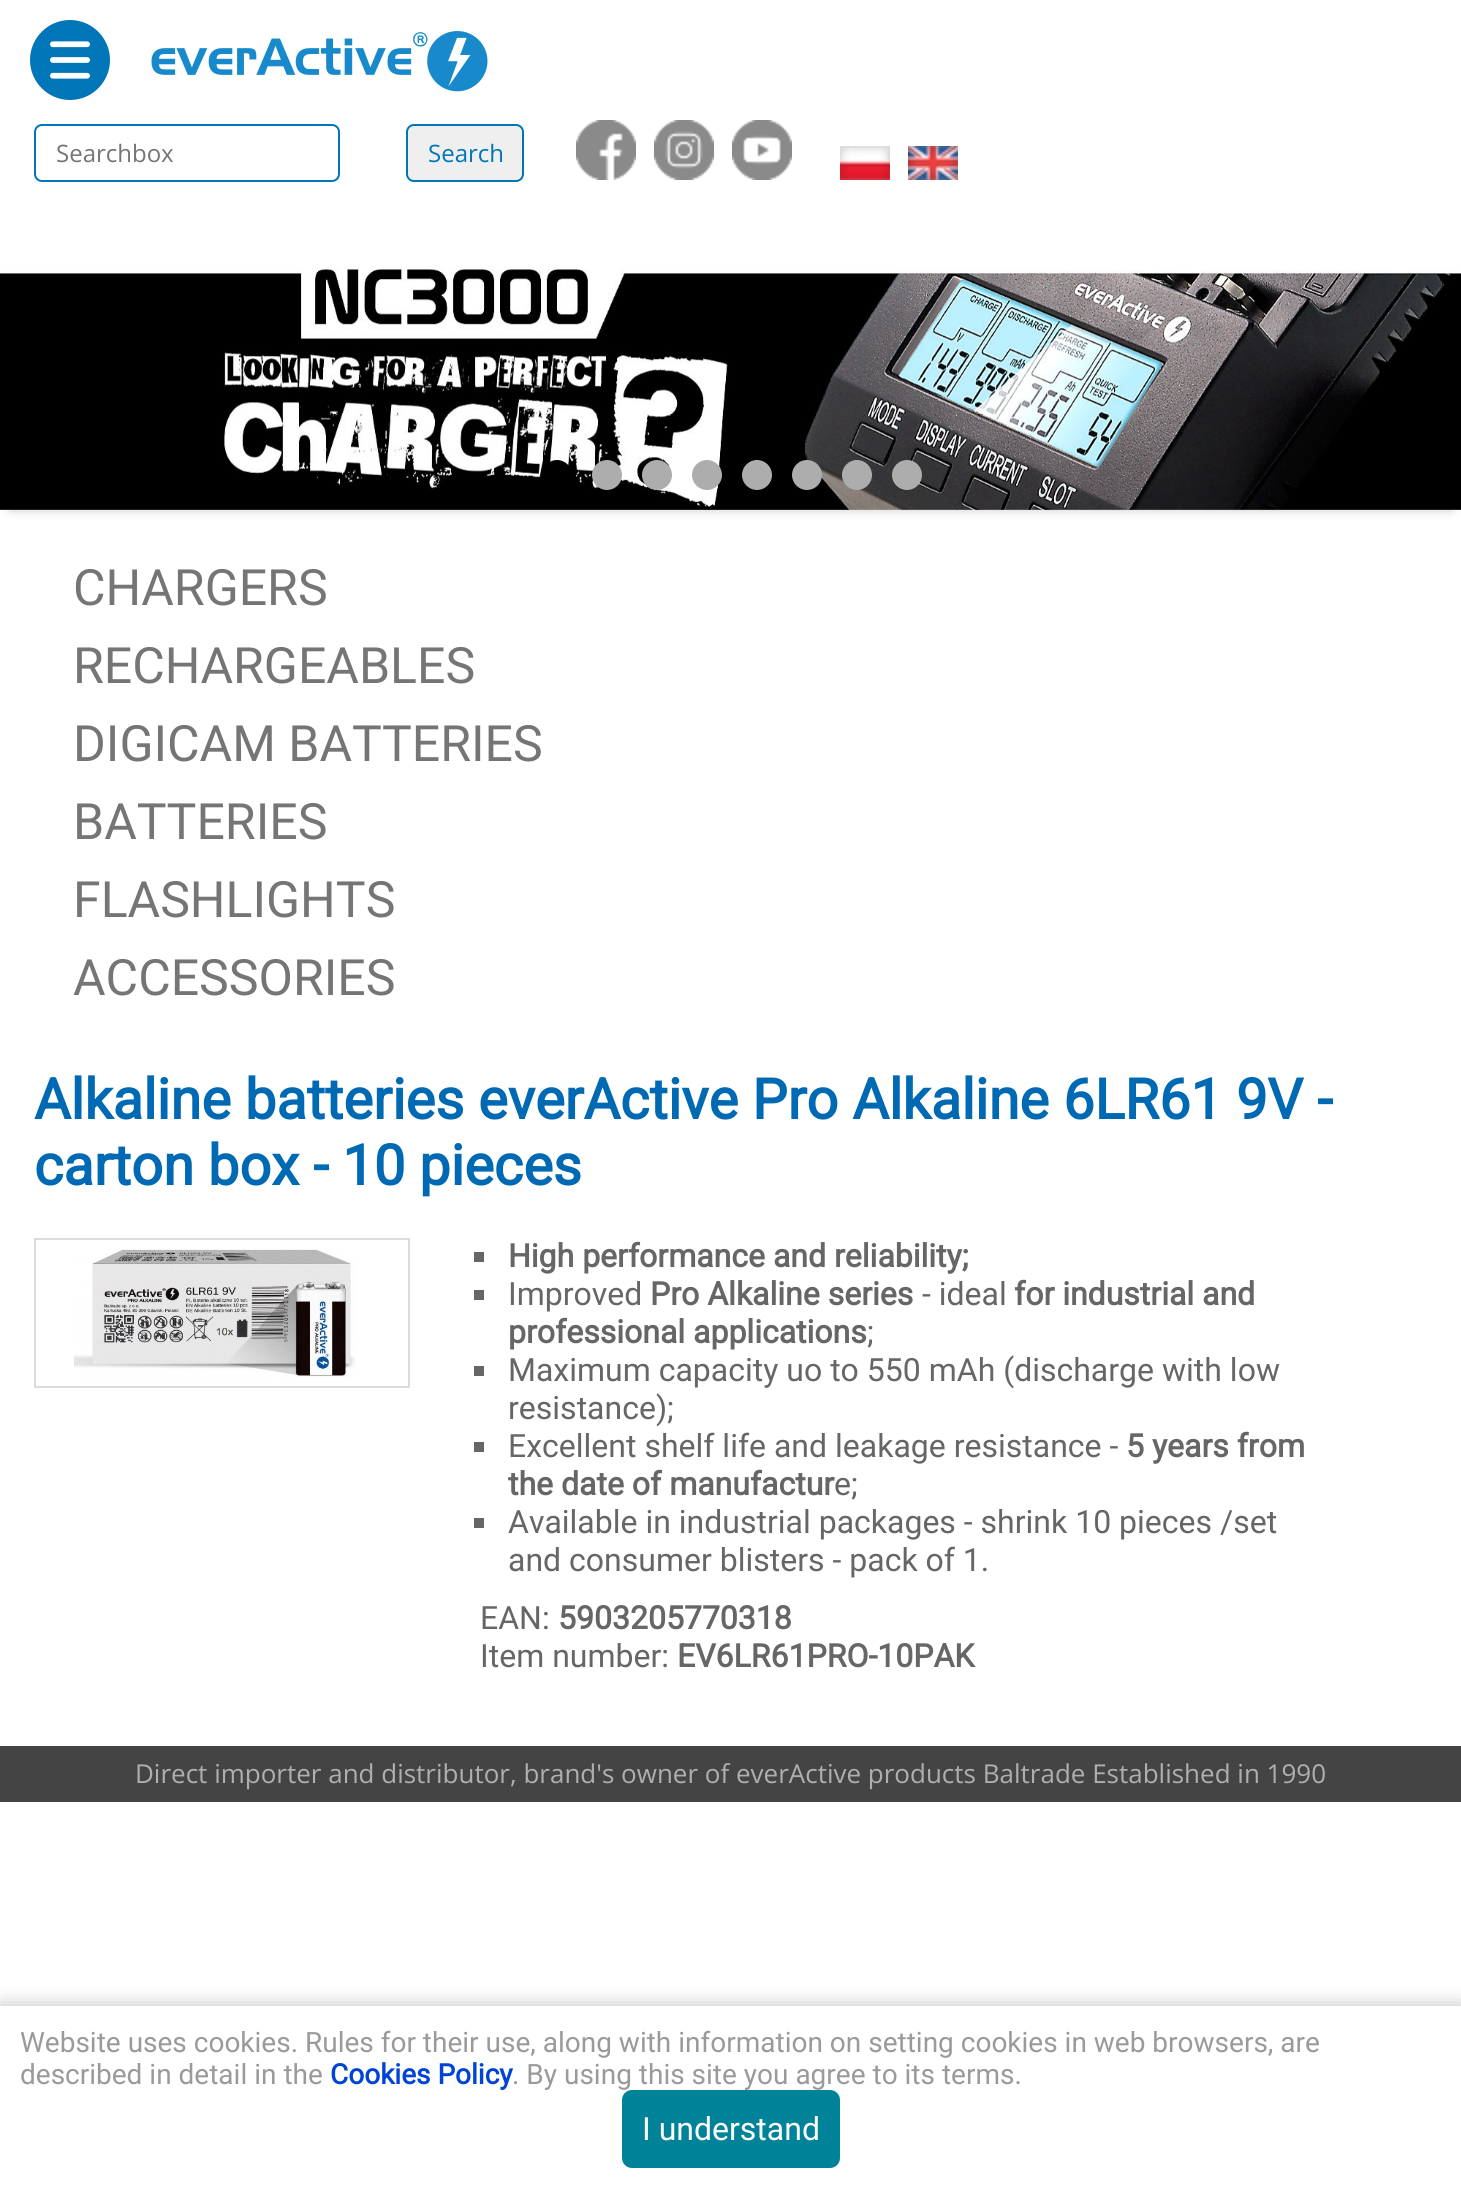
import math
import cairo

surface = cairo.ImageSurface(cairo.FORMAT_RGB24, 1461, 2188)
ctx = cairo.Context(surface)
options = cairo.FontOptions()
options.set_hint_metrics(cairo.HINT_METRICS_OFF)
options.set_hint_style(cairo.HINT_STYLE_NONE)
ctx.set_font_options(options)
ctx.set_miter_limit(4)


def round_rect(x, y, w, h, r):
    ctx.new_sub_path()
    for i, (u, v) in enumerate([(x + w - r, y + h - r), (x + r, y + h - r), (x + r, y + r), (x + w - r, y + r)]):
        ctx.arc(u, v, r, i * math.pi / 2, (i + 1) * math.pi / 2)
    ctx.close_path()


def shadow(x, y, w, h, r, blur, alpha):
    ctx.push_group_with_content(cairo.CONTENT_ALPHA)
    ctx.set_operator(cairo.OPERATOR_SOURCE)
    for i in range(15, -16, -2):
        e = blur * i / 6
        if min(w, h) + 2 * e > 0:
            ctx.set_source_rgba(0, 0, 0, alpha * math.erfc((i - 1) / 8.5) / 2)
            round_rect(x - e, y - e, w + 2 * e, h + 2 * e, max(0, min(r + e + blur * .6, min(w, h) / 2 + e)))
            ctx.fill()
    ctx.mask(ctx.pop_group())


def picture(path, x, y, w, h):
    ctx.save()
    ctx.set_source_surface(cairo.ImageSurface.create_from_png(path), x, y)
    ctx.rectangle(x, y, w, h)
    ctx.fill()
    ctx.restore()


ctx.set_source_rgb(1, 1, 1)
ctx.paint()
picture("img1.png", 30, 20, 80, 80)
picture("img2.png", 151, 31, 337, 61)
round_rect(35, 125, 304, 56, 7)
ctx.set_source_rgb(0, 0.459, 0.722)
ctx.stroke()
ctx.select_font_face("Open Sans")
ctx.set_font_size(24)
ctx.set_source_rgb(0.459, 0.459, 0.459)
ctx.move_to(56, 162)
ctx.show_text("Searchbox")
ctx.set_source_rgb(0.937, 0.937, 0.937)
round_rect(407, 125, 116, 56, 7)
ctx.fill_preserve()
ctx.set_source_rgb(0, 0.459, 0.722)
ctx.stroke()
ctx.move_to(428, 162)
ctx.show_text("Search")
picture("img3.png", 576, 120, 60, 60)
picture("img4.png", 654, 120, 60, 60)
picture("img5.png", 732, 120, 60, 60)
picture("img6.png", 840, 146, 50, 34)
picture("img7.png", 908, 146, 50, 34)
ctx.save()
ctx.rectangle(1, 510, 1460, 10)
ctx.clip()
ctx.set_source_rgb(0.8, 0.8, 0.8)
shadow(10, 248, 1442, 262, 0, 5, 1)
ctx.restore()
picture("img8.png", 0, 269, 1461, 241)
ctx.set_source_rgb(0, 0, 0)
ctx.arc(557, 475, 15, 0, 2 * math.pi)
ctx.fill()
ctx.set_source_rgb(0.678, 0.678, 0.678)
ctx.arc(607, 475, 15, 0, 2 * math.pi)
ctx.fill()
ctx.arc(657, 475, 15, 0, 2 * math.pi)
ctx.fill()
ctx.arc(707, 475, 15, 0, 2 * math.pi)
ctx.fill()
ctx.arc(757, 475, 15, 0, 2 * math.pi)
ctx.fill()
ctx.arc(807, 475, 15, 0, 2 * math.pi)
ctx.fill()
ctx.arc(857, 475, 15, 0, 2 * math.pi)
ctx.fill()
ctx.arc(907, 475, 15, 0, 2 * math.pi)
ctx.fill()
ctx.select_font_face("Roboto")
ctx.set_font_size(50)
ctx.set_source_rgb(0.459, 0.459, 0.459)
ctx.move_to(73, 605)
ctx.show_text("CHARGERS")
ctx.move_to(73, 683)
ctx.show_text("RECHARGEABLES")
ctx.move_to(73, 761)
ctx.show_text("DIGICAM BATTERIES")
ctx.move_to(73, 839)
ctx.show_text("BATTERIES")
ctx.move_to(73, 917)
ctx.show_text("FLASHLIGHTS")
ctx.move_to(73, 995)
ctx.show_text("ACCESSORIES")
ctx.select_font_face("Roboto", cairo.FONT_SLANT_NORMAL, cairo.FONT_WEIGHT_BOLD)
ctx.set_font_size(56)
ctx.set_source_rgb(0, 0.412, 0.706)
ctx.move_to(34, 1119)
ctx.show_text("Alkaline batteries everActive Pro Alkaline 6LR61 9V -")
ctx.move_to(34, 1185)
ctx.show_text("carton box - 10 pieces")
ctx.rectangle(35, 1239, 374, 148)
ctx.set_source_rgb(0.863, 0.863, 0.863)
ctx.stroke()
picture("img9.png", 74, 1249, 282, 129)
ctx.set_source_rgb(0.4, 0.4, 0.4)
ctx.rectangle(474, 1252, 10, 10)
ctx.fill()
ctx.set_font_size(32)
ctx.move_to(508, 1267)
ctx.show_text("High performance and reliability;")
ctx.rectangle(474, 1290, 10, 10)
ctx.fill()
ctx.select_font_face("Roboto")
ctx.move_to(508, 1305)
ctx.show_text("Improved")
ctx.select_font_face("Roboto", cairo.FONT_SLANT_NORMAL, cairo.FONT_WEIGHT_BOLD)
ctx.move_to(650, 1305)
ctx.show_text("Pro Alkaline series")
ctx.select_font_face("Roboto")
ctx.move_to(922, 1305)
ctx.show_text("- ideal")
ctx.select_font_face("Roboto", cairo.FONT_SLANT_NORMAL, cairo.FONT_WEIGHT_BOLD)
ctx.move_to(1014, 1305)
ctx.show_text("for industrial and")
ctx.move_to(508, 1343)
ctx.show_text("professional applications")
ctx.select_font_face("Roboto")
ctx.move_to(867, 1343)
ctx.show_text(";")
ctx.rectangle(474, 1366, 10, 10)
ctx.fill()
ctx.move_to(508, 1381)
ctx.show_text("Maximum capacity uo to 550 mAh (discharge with low")
ctx.move_to(508, 1419)
ctx.show_text("resistance);")
ctx.rectangle(474, 1442, 10, 10)
ctx.fill()
ctx.move_to(508, 1457)
ctx.show_text("Excellent shelf life and leakage resistance -")
ctx.select_font_face("Roboto", cairo.FONT_SLANT_NORMAL, cairo.FONT_WEIGHT_BOLD)
ctx.move_to(1126, 1457)
ctx.show_text("5 years from")
ctx.move_to(508, 1495)
ctx.show_text("the date of manufactur")
ctx.select_font_face("Roboto")
ctx.move_to(834, 1495)
ctx.show_text("e;")
ctx.rectangle(474, 1518, 10, 10)
ctx.fill()
ctx.move_to(508, 1533)
ctx.show_text("Available in industrial packages - shrink 10 pieces /set")
ctx.move_to(508, 1571)
ctx.show_text("and consumer blisters - pack of 1.")
ctx.move_to(480, 1629)
ctx.show_text("EAN:")
ctx.select_font_face("Roboto", cairo.FONT_SLANT_NORMAL, cairo.FONT_WEIGHT_BOLD)
ctx.move_to(558, 1629)
ctx.show_text("5903205770318")
ctx.select_font_face("Roboto")
ctx.move_to(480, 1667)
ctx.show_text("Item number:")
ctx.select_font_face("Roboto", cairo.FONT_SLANT_NORMAL, cairo.FONT_WEIGHT_BOLD)
ctx.move_to(677, 1667)
ctx.show_text("EV6LR61PRO-10PAK")
ctx.set_source_rgb(0.267, 0.267, 0.267)
ctx.rectangle(0, 1746, 1461, 56)
ctx.fill()
ctx.select_font_face("Open Sans")
ctx.set_font_size(26)
ctx.set_source_rgb(0.686, 0.686, 0.686)
ctx.move_to(135, 1783)
ctx.show_text("Direct importer and distributor, brand's owner of everActive products Baltrade Established in 1990")
ctx.save()
ctx.rectangle(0, 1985, 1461, 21)
ctx.clip()
ctx.set_source_rgb(0.749, 0.749, 0.749)
shadow(0, 2006, 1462, 182, 0, 10, 1)
ctx.restore()
ctx.select_font_face("Roboto")
ctx.set_font_size(28)
ctx.set_source_rgb(0.604, 0.604, 0.608)
ctx.move_to(20, 2052)
ctx.show_text("Website uses cookies. Rules for their use, along with information on setting cookies in web browsers, are")
ctx.move_to(20, 2084)
ctx.show_text("described in detail in the")
ctx.select_font_face("Roboto", cairo.FONT_SLANT_NORMAL, cairo.FONT_WEIGHT_BOLD)
ctx.set_source_rgb(0, 0.267, 0.835)
ctx.move_to(330, 2084)
ctx.show_text("Cookies Policy")
ctx.select_font_face("Roboto")
ctx.set_source_rgb(0.604, 0.604, 0.608)
ctx.move_to(512, 2084)
ctx.show_text(". By using this site you agree to its terms.")
ctx.set_source_rgb(0, 0.514, 0.596)
round_rect(622, 2090, 218, 78, 10)
ctx.fill()
ctx.set_font_size(32)
ctx.set_source_rgb(1, 1, 1)
ctx.move_to(642, 2140)
ctx.show_text("I understand")
surface.write_to_png("page.png")
